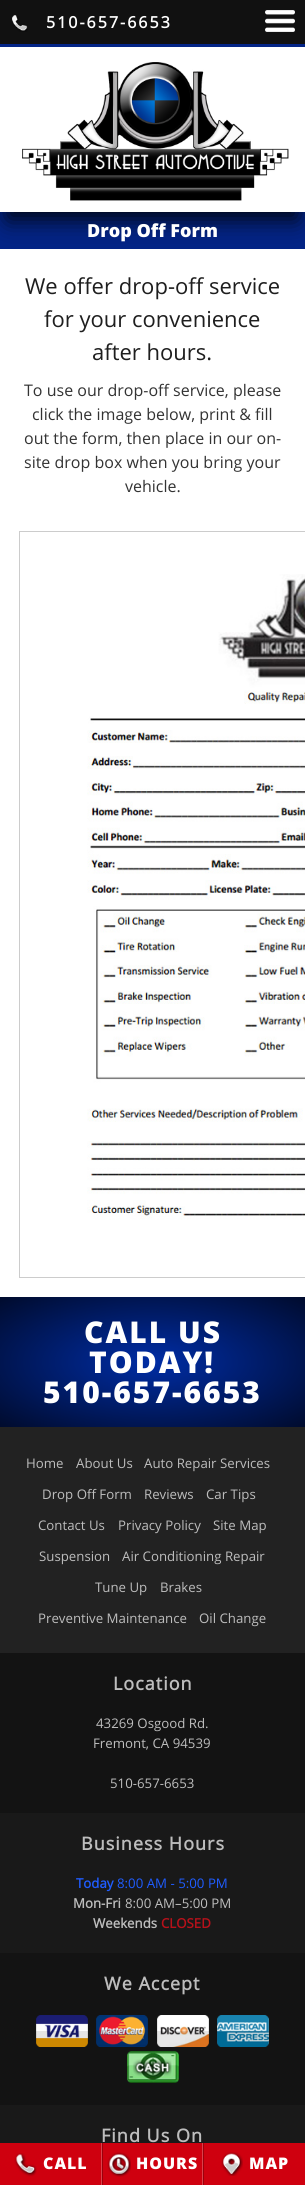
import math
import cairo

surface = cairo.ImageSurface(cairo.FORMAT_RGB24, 305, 2185)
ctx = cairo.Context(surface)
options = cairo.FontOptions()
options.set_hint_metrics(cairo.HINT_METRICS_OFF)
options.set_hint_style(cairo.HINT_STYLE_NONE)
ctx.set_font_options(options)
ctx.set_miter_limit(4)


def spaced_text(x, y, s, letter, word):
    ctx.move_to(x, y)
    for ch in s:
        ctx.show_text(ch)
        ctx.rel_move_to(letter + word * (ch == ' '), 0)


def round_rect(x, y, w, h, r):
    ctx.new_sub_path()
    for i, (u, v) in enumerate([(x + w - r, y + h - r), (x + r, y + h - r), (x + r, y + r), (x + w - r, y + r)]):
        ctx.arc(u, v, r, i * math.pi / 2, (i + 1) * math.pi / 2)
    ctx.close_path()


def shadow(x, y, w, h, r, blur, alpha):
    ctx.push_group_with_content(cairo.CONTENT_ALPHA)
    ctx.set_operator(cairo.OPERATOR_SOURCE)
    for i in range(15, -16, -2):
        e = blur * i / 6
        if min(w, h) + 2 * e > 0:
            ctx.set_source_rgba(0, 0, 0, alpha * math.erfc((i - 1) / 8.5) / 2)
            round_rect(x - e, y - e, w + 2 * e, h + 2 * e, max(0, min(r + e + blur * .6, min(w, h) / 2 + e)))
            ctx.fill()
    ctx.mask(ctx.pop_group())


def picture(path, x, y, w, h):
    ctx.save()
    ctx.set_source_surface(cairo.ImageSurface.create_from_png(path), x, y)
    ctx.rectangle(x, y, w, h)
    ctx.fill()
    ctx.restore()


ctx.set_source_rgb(1, 1, 1)
ctx.paint()
ctx.set_source_rgb(0.012, 0.141, 0.525)
ctx.rectangle(0, 212, 305, 37)
ctx.fill()
ctx.set_source_rgb(0, 0, 0)
shadow(8, 23, 289, 196, 0, 11.5, 0.9)
ctx.set_source_rgb(1, 1, 1)
ctx.rectangle(0, 47, 305, 165)
ctx.fill()
ctx.set_source_rgb(0.067, 0.067, 0.067)
ctx.rectangle(0, 0, 305, 44)
ctx.fill()
ctx.set_source_rgb(0.012, 0.141, 0.525)
ctx.rectangle(0, 44, 305, 3)
ctx.fill()
picture("img1.png", 12, 15, 16, 17)
ctx.select_font_face("Open Sans", cairo.FONT_SLANT_NORMAL, cairo.FONT_WEIGHT_BOLD)
ctx.set_font_size(16)
ctx.set_source_rgb(1, 1, 1)
spaced_text(46, 28, "510-657-6653", 2, 0)
picture("img2.png", 265, 10, 30, 22)
picture("img3.png", 22, 62, 267, 139)
ctx.select_font_face("Open Sans ExtraBold")
ctx.set_font_size(18)
ctx.move_to(87, 237)
ctx.show_text("Drop Off Form")
ctx.select_font_face("Open Sans")
ctx.set_font_size(22)
ctx.set_source_rgb(0.118, 0.118, 0.118)
ctx.move_to(25, 294)
ctx.show_text("We offer drop-off service")
ctx.move_to(44, 327)
ctx.show_text("for your convenience")
ctx.move_to(92, 360)
ctx.show_text("after hours.")
ctx.set_font_size(16)
ctx.set_source_rgb(0.2, 0.2, 0.2)
ctx.move_to(24, 396)
ctx.show_text("To use our drop-off service, please")
ctx.move_to(32, 420)
ctx.show_text("click the image below, print & fill")
ctx.move_to(24, 444)
ctx.show_text("out the form, then place in our on-")
ctx.move_to(24, 468)
ctx.show_text("site drop box when you bring your")
ctx.move_to(125, 492)
ctx.show_text("vehicle.")
ctx.rectangle(19.5, 531.5, 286, 746)
ctx.set_source_rgb(0.8, 0.8, 0.8)
ctx.set_line_width(1)
ctx.stroke()
picture("img4.png", 87, 574, 218, 646)
gradient = cairo.RadialGradient(0, 0, 0, 0, 0, 1)
gradient.set_matrix(cairo.Matrix(1 / 216, 0, 0, 1 / 92, -1 * 153 / 216, -1 * 1362 / 92))
gradient.add_color_stop_rgba(0, 0, 0.176, 0.647, 1)
gradient.add_color_stop_rgba(1, 0, 0.043, 0.176, 1)
ctx.set_source(gradient)
ctx.rectangle(0, 1297, 305, 130)
ctx.fill()
ctx.select_font_face("Open Sans ExtraBold")
ctx.set_font_size(30)
ctx.set_source_rgb(1, 1, 1)
spaced_text(84, 1343, "CALL US", 2, 0)
spaced_text(89, 1373, "TODAY!", 2, 0)
spaced_text(43, 1403, "510-657-6653", 2, 0)
ctx.set_source_rgb(0.133, 0.133, 0.133)
ctx.rectangle(0, 1427, 305, 226)
ctx.fill()
ctx.select_font_face("Open Sans")
ctx.set_font_size(13.25)
ctx.set_source_rgb(0.741, 0.741, 0.741)
ctx.move_to(26, 1468)
ctx.show_text("Home")
ctx.move_to(76, 1468)
ctx.show_text("About Us")
ctx.move_to(144, 1468)
ctx.show_text("Auto Repair Services")
ctx.move_to(42, 1499)
ctx.show_text("Drop Off Form")
ctx.move_to(144, 1499)
ctx.show_text("Reviews")
ctx.move_to(206, 1499)
ctx.show_text("Car Tips")
ctx.move_to(38, 1530)
ctx.show_text("Contact Us")
ctx.move_to(118, 1530)
ctx.show_text("Privacy Policy")
ctx.move_to(213, 1530)
ctx.show_text("Site Map")
ctx.move_to(39, 1561)
ctx.show_text("Suspension")
ctx.move_to(122, 1561)
ctx.show_text("Air Conditioning Repair")
ctx.move_to(95, 1592)
ctx.show_text("Tune Up")
ctx.move_to(160, 1592)
ctx.show_text("Brakes")
ctx.move_to(38, 1623)
ctx.show_text("Preventive Maintenance")
ctx.move_to(199, 1623)
ctx.show_text("Oil Change")
ctx.set_source_rgb(0.098, 0.098, 0.098)
ctx.rectangle(0, 1813, 305, 330)
ctx.fill()
ctx.set_source_rgb(0.075, 0.075, 0.075)
ctx.rectangle(0, 1653, 305, 160)
ctx.fill()
ctx.select_font_face("Open Sans", cairo.FONT_SLANT_NORMAL, cairo.FONT_WEIGHT_BOLD)
ctx.set_font_size(18)
ctx.set_source_rgb(0.741, 0.741, 0.741)
spaced_text(113, 1690, "Location", 1, 0)
ctx.select_font_face("Open Sans")
ctx.set_font_size(13.25)
ctx.move_to(96, 1728)
ctx.show_text("43269 Osgood Rd.")
ctx.move_to(93, 1748)
ctx.show_text("Fremont, CA 94539")
ctx.move_to(110, 1788)
ctx.show_text("510-657-6653")
ctx.select_font_face("Open Sans", cairo.FONT_SLANT_NORMAL, cairo.FONT_WEIGHT_BOLD)
ctx.set_font_size(18)
spaced_text(81, 1850, "Business Hours", 1, 0)
ctx.set_font_size(13.25)
ctx.set_source_rgb(0.122, 0.361, 1)
ctx.move_to(76, 1888)
ctx.show_text("Today")
ctx.select_font_face("Open Sans")
ctx.move_to(117, 1888)
ctx.show_text("8:00 AM - 5:00 PM")
ctx.select_font_face("Open Sans", cairo.FONT_SLANT_NORMAL, cairo.FONT_WEIGHT_BOLD)
ctx.set_source_rgb(0.741, 0.741, 0.741)
ctx.move_to(73, 1908)
ctx.show_text("Mon-Fri")
ctx.select_font_face("Open Sans")
ctx.move_to(125, 1908)
ctx.show_text("8:00 AM–5:00 PM")
ctx.select_font_face("Open Sans", cairo.FONT_SLANT_NORMAL, cairo.FONT_WEIGHT_BOLD)
ctx.move_to(93, 1928)
ctx.show_text("Weekends")
ctx.set_source_rgb(0.722, 0.067, 0.102)
ctx.move_to(161, 1928)
ctx.show_text("CLOSED")
ctx.set_source_rgb(0.075, 0.075, 0.075)
ctx.rectangle(0, 1953, 305, 152)
ctx.fill()
ctx.set_font_size(18)
ctx.set_source_rgb(0.741, 0.741, 0.741)
spaced_text(104, 1990, "We Accept", 1, 0)
picture("img5.png", 36, 2015, 52, 32)
picture("img6.png", 96, 2015, 52, 32)
picture("img7.png", 157, 2015, 52, 32)
picture("img8.png", 217, 2015, 52, 32)
picture("img9.png", 127, 2051, 52, 32)
spaced_text(101, 2142, "Find Us On", 1, 0)
ctx.set_source_rgb(0.812, 0, 0.059)
ctx.rectangle(0, 2143, 305, 42)
ctx.fill()
picture("img10.png", 14, 2153, 23, 24)
ctx.select_font_face("Open Sans ExtraBold")
ctx.set_font_size(16)
ctx.set_source_rgb(1, 1, 1)
spaced_text(43, 2169, "CALL", 1, 0)
ctx.set_source_rgb(0.608, 0, 0.043)
ctx.rectangle(203, 2143, 1, 42)
ctx.fill()
ctx.set_source_rgb(0.859, 0.251, 0.294)
ctx.rectangle(101, 2143, 1, 42)
ctx.fill()
ctx.set_source_rgb(0.608, 0, 0.043)
ctx.rectangle(102, 2143, 1, 42)
ctx.fill()
ctx.set_source_rgb(0.859, 0.251, 0.294)
ctx.rectangle(202, 2143, 1, 42)
ctx.fill()
picture("img11.png", 107, 2152, 24, 25)
ctx.set_source_rgb(1, 1, 1)
spaced_text(136, 2169, "HOURS", 1, 0)
picture("img12.png", 221, 2152, 22, 24)
spaced_text(249, 2169, "MAP", 1, 0)
surface.write_to_png("page.png")
